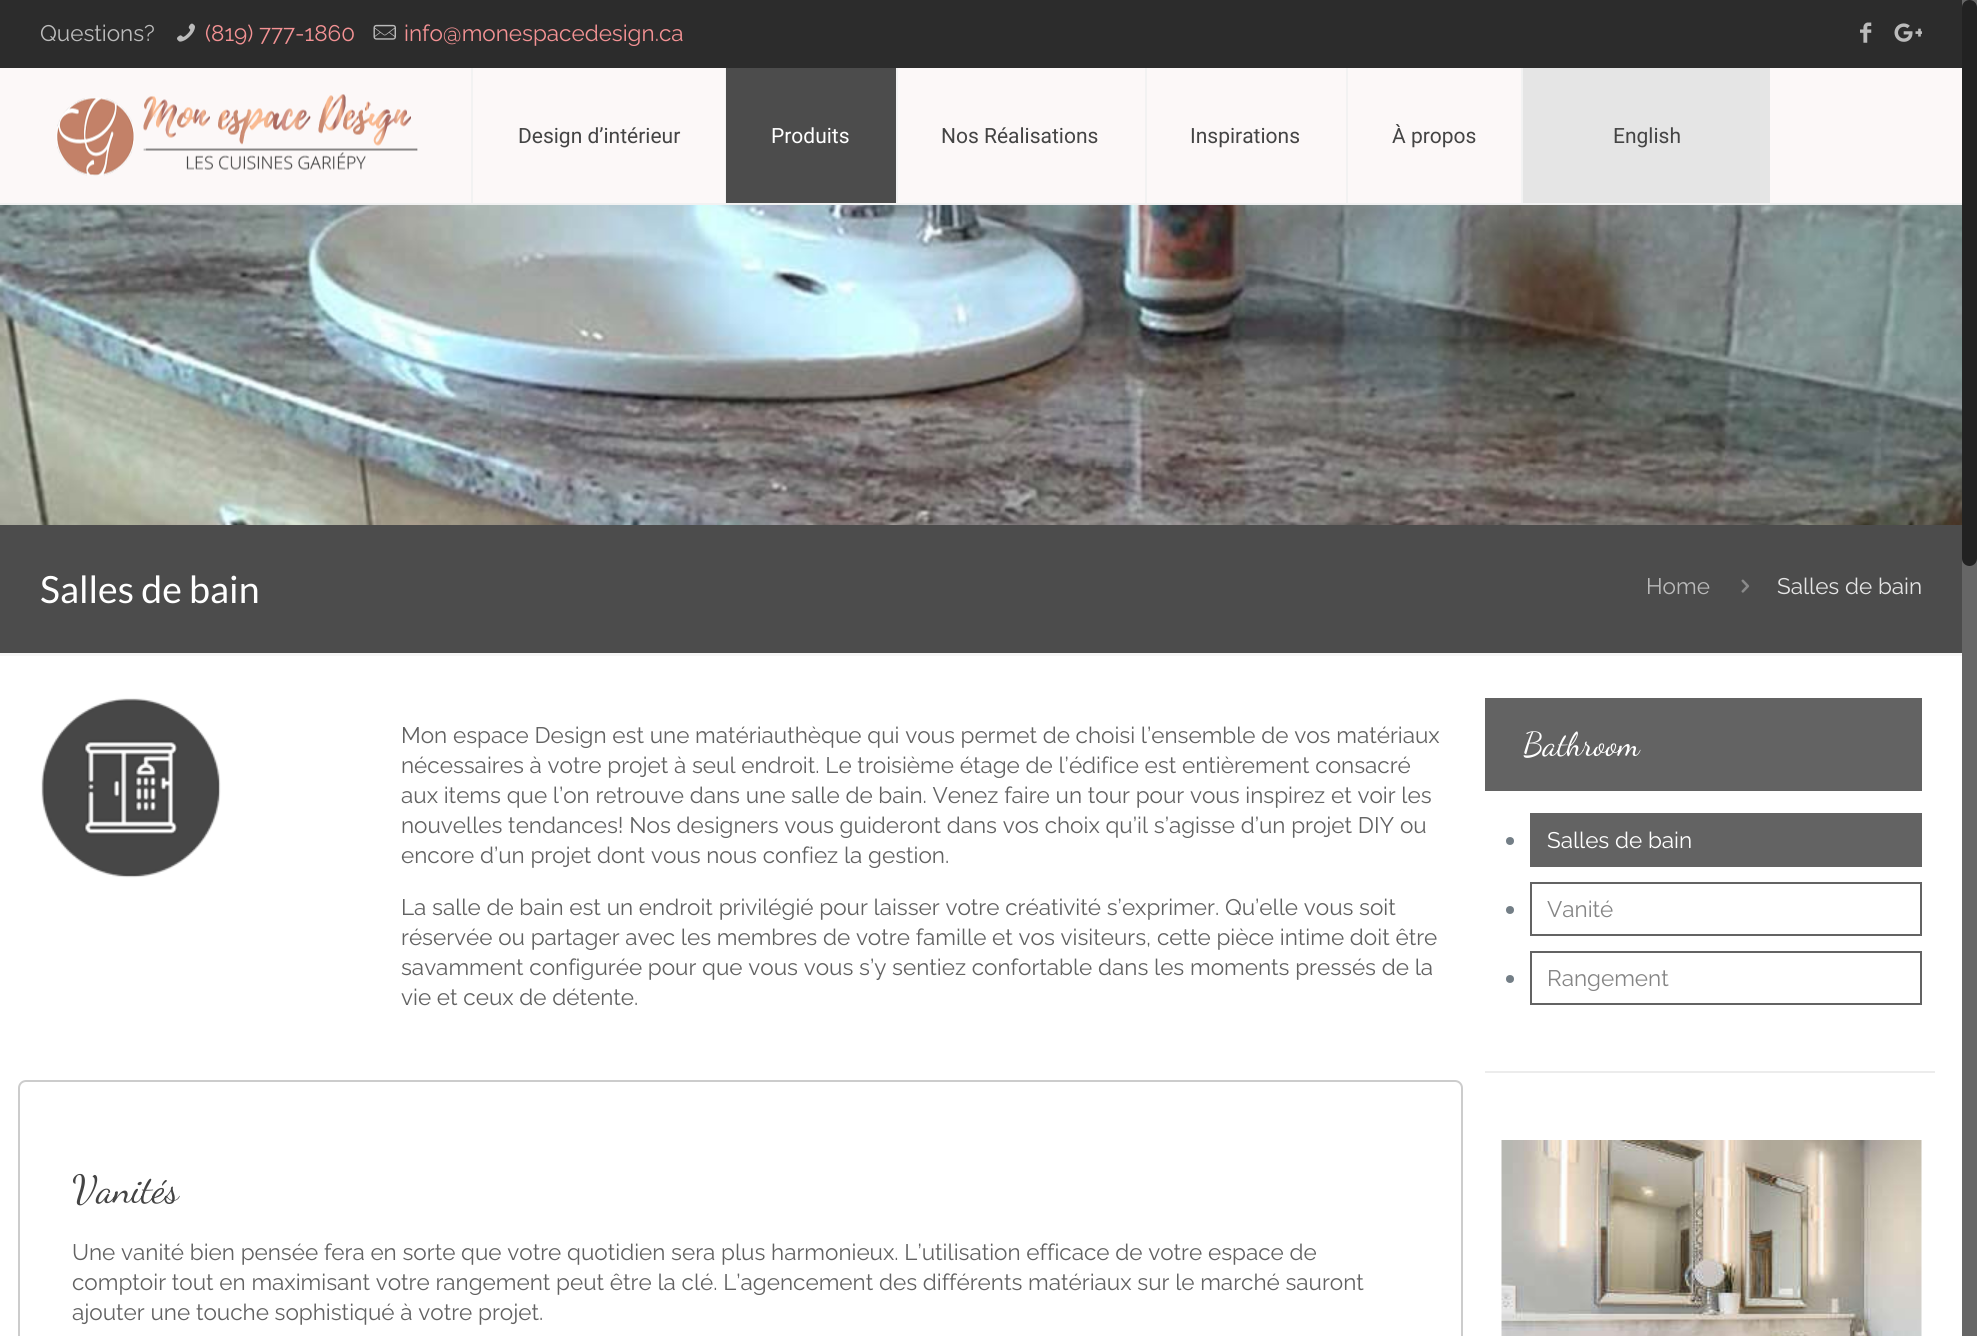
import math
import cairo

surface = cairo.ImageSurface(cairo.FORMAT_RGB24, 1977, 1336)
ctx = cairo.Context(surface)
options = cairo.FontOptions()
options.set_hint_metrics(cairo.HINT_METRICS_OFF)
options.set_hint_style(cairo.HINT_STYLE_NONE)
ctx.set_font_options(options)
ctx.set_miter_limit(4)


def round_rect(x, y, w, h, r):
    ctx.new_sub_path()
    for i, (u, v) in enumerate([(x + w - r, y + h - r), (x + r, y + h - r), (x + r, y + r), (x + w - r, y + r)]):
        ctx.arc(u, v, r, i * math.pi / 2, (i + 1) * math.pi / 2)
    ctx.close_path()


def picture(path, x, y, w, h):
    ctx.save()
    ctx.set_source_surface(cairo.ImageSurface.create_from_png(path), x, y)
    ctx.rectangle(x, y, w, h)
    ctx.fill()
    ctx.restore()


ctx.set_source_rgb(1, 1, 1)
ctx.paint()
picture("img1.png", 0, 205, 1962, 320)
ctx.set_source_rgb(0.173, 0.173, 0.173)
ctx.rectangle(0, 0, 1962, 68)
ctx.fill()
ctx.select_font_face("Raleway")
ctx.set_font_size(22.5)
ctx.set_source_rgb(0.733, 0.733, 0.733)
ctx.move_to(40, 41)
ctx.show_text("Questions?")
picture("img2.png", 177, 23, 18, 19)
ctx.set_source_rgb(0.957, 0.573, 0.58)
ctx.move_to(205, 41)
ctx.show_text("(819) 777-1860")
picture("img3.png", 373, 24, 23, 16)
ctx.move_to(404, 41)
ctx.show_text("info@monespacedesign.ca")
picture("img4.png", 1860, 22, 12, 21)
picture("img5.png", 1894, 23, 28, 19)
ctx.set_source_rgb(0.988, 0.969, 0.969)
ctx.rectangle(0, 68, 1962, 135)
ctx.fill()
ctx.set_source_rgb(0.949, 0.949, 0.949)
ctx.rectangle(0, 203, 1962, 2)
ctx.fill()
picture("img6.png", 56, 94, 362, 82)
ctx.rectangle(725, 68, 1, 135)
ctx.fill()
ctx.rectangle(471, 68, 2, 135)
ctx.fill()
ctx.select_font_face("Roboto")
ctx.set_font_size(21)
ctx.set_source_rgb(0.267, 0.267, 0.267)
ctx.move_to(518, 143)
ctx.show_text("Design d’intérieur")
ctx.set_source_rgb(0.298, 0.298, 0.298)
ctx.rectangle(726, 68, 170, 135)
ctx.fill()
ctx.set_source_rgb(0.949, 0.949, 0.949)
ctx.rectangle(896, 68, 2, 135)
ctx.fill()
ctx.set_source_rgb(1, 1, 1)
ctx.move_to(771, 143)
ctx.show_text("Produits")
ctx.set_source_rgb(0.949, 0.949, 0.949)
ctx.rectangle(1145, 68, 2, 135)
ctx.fill()
ctx.set_source_rgb(0.267, 0.267, 0.267)
ctx.move_to(941, 143)
ctx.show_text("Nos Réalisations")
ctx.set_source_rgb(0.949, 0.949, 0.949)
ctx.rectangle(1346, 68, 2, 135)
ctx.fill()
ctx.set_source_rgb(0.267, 0.267, 0.267)
ctx.move_to(1190, 143)
ctx.show_text("Inspirations")
ctx.set_source_rgb(0.949, 0.949, 0.949)
ctx.rectangle(1521, 68, 2, 135)
ctx.fill()
ctx.set_source_rgb(0.267, 0.267, 0.267)
ctx.move_to(1392, 143)
ctx.show_text("À propos")
ctx.set_source_rgb(0.898, 0.898, 0.898)
ctx.rectangle(1523, 68, 247, 135)
ctx.fill()
ctx.set_source_rgb(0.267, 0.267, 0.267)
ctx.move_to(1613, 143)
ctx.show_text("English")
ctx.set_source_rgb(0.298, 0.298, 0.298)
ctx.rectangle(0, 525, 1962, 128)
ctx.fill()
ctx.select_font_face("Lato")
ctx.set_font_size(37.5)
ctx.set_source_rgb(1, 1, 1)
ctx.move_to(40, 603)
ctx.show_text("Salles de bain")
ctx.select_font_face("Raleway")
ctx.set_font_size(22.5)
ctx.set_source_rgb(0.733, 0.733, 0.733)
ctx.move_to(1646, 594)
ctx.show_text("Home")
picture("img7.png", 1741, 579, 9, 14)
ctx.set_source_rgb(0.898, 0.898, 0.898)
ctx.move_to(1777, 594)
ctx.show_text("Salles de bain")
ctx.set_source_rgb(0.961, 0.961, 0.961)
ctx.rectangle(0, 653, 1962, 3)
ctx.fill()
picture("img8.png", 41, 698, 180, 180)
ctx.set_source_rgb(0.384, 0.384, 0.384)
ctx.move_to(401, 743)
ctx.show_text("Mon espace Design est une matériauthèque qui vous permet de choisi l’ensemble de vos matériaux")
ctx.move_to(401, 773)
ctx.show_text("nécessaires à votre projet à seul endroit. Le troisième étage de l’édifice est entièrement consacré")
ctx.move_to(401, 803)
ctx.show_text("aux items que l’on retrouve dans une salle de bain. Venez faire un tour pour vous inspirez et voir les")
ctx.move_to(401, 833)
ctx.show_text("nouvelles tendances! Nos designers vous guideront dans vos choix qu’il s’agisse d’un projet DIY ou")
ctx.move_to(401, 863)
ctx.show_text("encore d’un projet dont vous nous confiez la gestion.")
ctx.move_to(401, 915)
ctx.show_text("La salle de bain est un endroit privilégié pour laisser votre créativité s’exprimer. Qu’elle vous soit")
ctx.move_to(401, 945)
ctx.show_text("réservée ou partager avec les membres de votre famille et vos visiteurs, cette pièce intime doit être")
ctx.move_to(401, 975)
ctx.show_text("savamment configurée pour que vous vous s’y sentiez confortable dans les moments pressés de la")
ctx.move_to(401, 1005)
ctx.show_text("vie et ceux de détente.")
round_rect(19, 1081, 1443, 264, 7)
ctx.set_source_rgb(0.8, 0.8, 0.8)
ctx.stroke()
ctx.select_font_face("Dancing Script")
ctx.set_font_size(39)
ctx.set_source_rgb(0.267, 0.267, 0.267)
ctx.move_to(72, 1202)
ctx.show_text("Vanités")
ctx.select_font_face("Raleway")
ctx.set_font_size(22.5)
ctx.set_source_rgb(0.384, 0.384, 0.384)
ctx.move_to(72, 1260)
ctx.show_text("Une vanité bien pensée fera en sorte que votre quotidien sera plus harmonieux. L’utilisation efficace de votre espace de")
ctx.move_to(72, 1290)
ctx.show_text("comptoir tout en maximisant votre rangement peut être la clé. L’agencement des différents matériaux sur le marché sauront")
ctx.move_to(72, 1320)
ctx.show_text("ajouter une touche sophistiqué à votre projet.")
ctx.set_source_rgb(0.388, 0.388, 0.388)
ctx.rectangle(1485, 698, 437, 93)
ctx.fill()
ctx.select_font_face("Dancing Script")
ctx.set_font_size(33)
ctx.set_source_rgb(1, 1, 1)
ctx.move_to(1523, 755)
ctx.show_text("Bathroom")
ctx.set_source_rgb(0.451, 0.494, 0.525)
ctx.new_path()
ctx.arc(1510, 841, 4, 0, 2 * math.pi)
ctx.fill()
ctx.set_source_rgb(0.388, 0.388, 0.388)
ctx.rectangle(1530, 813, 392, 54)
ctx.fill()
ctx.select_font_face("Raleway")
ctx.set_font_size(22.5)
ctx.set_source_rgb(1, 1, 1)
ctx.move_to(1547, 848)
ctx.show_text("Salles de bain")
ctx.set_source_rgb(0.451, 0.494, 0.525)
ctx.new_path()
ctx.arc(1510, 910, 4, 0, 2 * math.pi)
ctx.fill()
ctx.rectangle(1531, 883, 390, 52)
ctx.set_source_rgb(0.388, 0.388, 0.388)
ctx.stroke()
ctx.set_source_rgb(0.522, 0.522, 0.522)
ctx.move_to(1547, 917)
ctx.show_text("Vanité")
ctx.set_source_rgb(0.451, 0.494, 0.525)
ctx.new_path()
ctx.arc(1510, 979, 4, 0, 2 * math.pi)
ctx.fill()
ctx.rectangle(1531, 952, 390, 52)
ctx.set_source_rgb(0.388, 0.388, 0.388)
ctx.stroke()
ctx.set_source_rgb(0.522, 0.522, 0.522)
ctx.move_to(1547, 986)
ctx.show_text("Rangement")
ctx.set_source_rgb(0.922, 0.922, 0.922)
ctx.rectangle(1485, 1071, 450, 2)
ctx.fill()
picture("img9.png", 1501, 1140, 421, 196)
ctx.set_source_rgb(0.4, 0.4, 0.4)
ctx.rectangle(1962, 0, 15, 1336)
ctx.fill()
ctx.set_source_rgb(0.133, 0.133, 0.133)
round_rect(1962, 0, 15, 566, 7.5)
ctx.fill()
surface.write_to_png("page.png")
